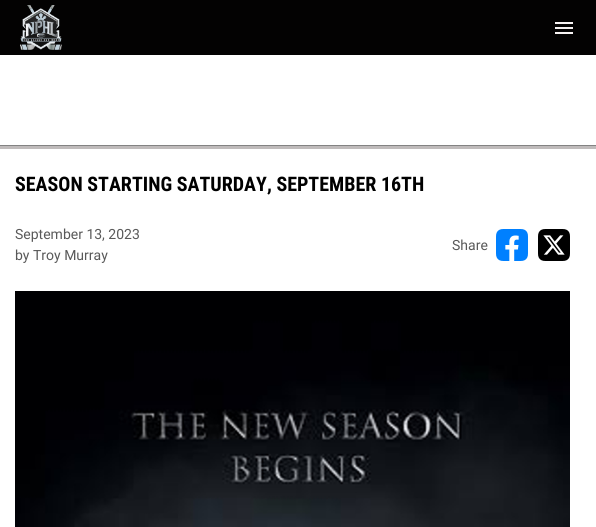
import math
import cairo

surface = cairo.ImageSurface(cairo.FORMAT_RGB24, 596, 527)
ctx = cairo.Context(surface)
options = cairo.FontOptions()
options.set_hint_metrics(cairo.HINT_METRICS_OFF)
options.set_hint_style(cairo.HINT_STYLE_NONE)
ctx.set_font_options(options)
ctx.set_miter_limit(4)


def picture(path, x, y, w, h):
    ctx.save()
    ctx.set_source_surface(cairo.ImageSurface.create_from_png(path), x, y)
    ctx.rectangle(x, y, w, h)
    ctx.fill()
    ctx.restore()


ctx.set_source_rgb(1, 1, 1)
ctx.paint()
ctx.set_source_rgb(0.514, 0.514, 0.514)
ctx.rectangle(0, 145, 596, 1)
ctx.fill()
ctx.set_source_rgb(0.012, 0.008, 0.008)
ctx.rectangle(0, 0, 596, 55)
ctx.fill()
picture("img1.png", 20, 5, 42, 45)
picture("img2.png", 555, 22, 18, 12)
ctx.set_source_rgb(0.749, 0.733, 0.733)
ctx.rectangle(0, 146, 596, 3)
ctx.fill()
ctx.select_font_face("Roboto Condensed", cairo.FONT_SLANT_NORMAL, cairo.FONT_WEIGHT_BOLD)
ctx.set_font_size(20)
ctx.set_source_rgb(0, 0, 0)
ctx.move_to(15, 191)
ctx.show_text("SEASON STARTING SATURDAY, SEPTEMBER 16TH")
ctx.select_font_face("Roboto")
ctx.set_font_size(14)
ctx.set_source_rgb(0.349, 0.349, 0.349)
ctx.move_to(15, 239)
ctx.show_text("September 13, 2023")
ctx.move_to(15, 260)
ctx.show_text("by Troy Murray")
ctx.move_to(452, 250)
ctx.show_text("Share")
picture("img3.png", 496, 229, 32, 32)
picture("img4.png", 538, 229, 32, 32)
picture("img5.png", 15, 291, 555, 236)
surface.write_to_png("page.png")
